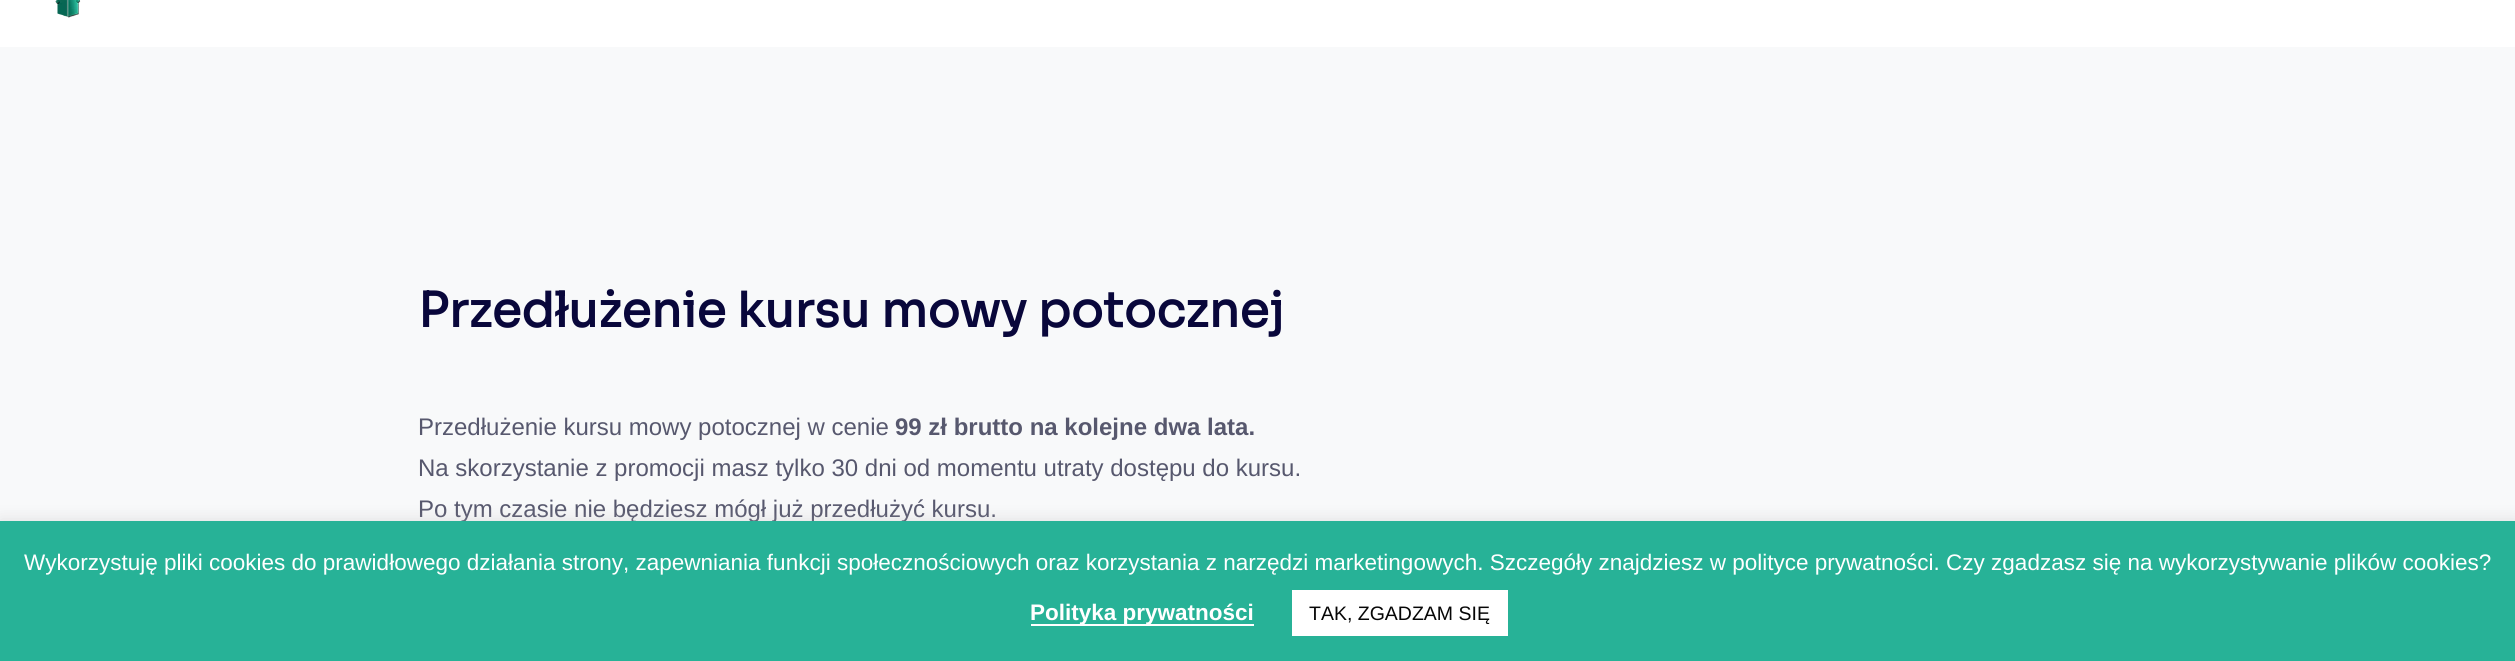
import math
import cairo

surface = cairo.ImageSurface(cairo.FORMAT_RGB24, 2515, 661)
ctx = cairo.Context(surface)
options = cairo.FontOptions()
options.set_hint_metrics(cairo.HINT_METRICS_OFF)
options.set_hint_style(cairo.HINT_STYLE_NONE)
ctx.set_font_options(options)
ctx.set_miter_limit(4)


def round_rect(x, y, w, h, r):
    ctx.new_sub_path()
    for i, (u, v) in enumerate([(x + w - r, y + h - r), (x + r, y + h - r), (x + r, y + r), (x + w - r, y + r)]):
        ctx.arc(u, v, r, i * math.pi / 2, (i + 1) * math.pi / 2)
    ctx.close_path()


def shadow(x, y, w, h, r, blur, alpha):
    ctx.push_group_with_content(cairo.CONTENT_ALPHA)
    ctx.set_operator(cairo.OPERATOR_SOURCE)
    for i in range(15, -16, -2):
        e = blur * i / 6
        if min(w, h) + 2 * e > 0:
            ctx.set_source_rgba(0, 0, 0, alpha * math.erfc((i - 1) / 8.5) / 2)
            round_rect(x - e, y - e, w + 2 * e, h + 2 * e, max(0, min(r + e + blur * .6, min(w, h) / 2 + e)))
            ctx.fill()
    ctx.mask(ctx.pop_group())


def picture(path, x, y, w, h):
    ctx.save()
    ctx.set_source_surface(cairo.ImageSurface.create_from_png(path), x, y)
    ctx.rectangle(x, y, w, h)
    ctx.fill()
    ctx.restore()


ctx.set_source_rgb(0.969, 0.976, 0.98)
ctx.paint()
ctx.set_source_rgb(1, 1, 1)
ctx.rectangle(0, 0, 2515, 47)
ctx.fill()
picture("img1.png", 55, 0, 26, 18)
ctx.select_font_face("Sora", cairo.FONT_SLANT_NORMAL, cairo.FONT_WEIGHT_BOLD)
ctx.set_font_size(48)
ctx.set_source_rgb(0.039, 0.031, 0.231)
ctx.move_to(418, 327)
ctx.show_text("Przedłużenie kursu mowy potocznej")
ctx.select_font_face("Liberation Sans")
ctx.set_font_size(24)
ctx.set_source_rgb(0.341, 0.345, 0.431)
ctx.move_to(418, 435)
ctx.show_text("Przedłużenie kursu mowy potocznej w cenie")
ctx.select_font_face("Liberation Sans", cairo.FONT_SLANT_NORMAL, cairo.FONT_WEIGHT_BOLD)
ctx.move_to(895, 435)
ctx.show_text("99 zł brutto na kolejne dwa lata.")
ctx.select_font_face("Liberation Sans")
ctx.move_to(418, 476)
ctx.show_text("Na skorzystanie z promocji masz tylko 30 dni od momentu utraty dostępu do kursu.")
ctx.move_to(418, 517)
ctx.show_text("Po tym czasie nie będziesz mógł już przedłużyć kursu.")
ctx.set_source_rgb(0.675, 0.671, 0.671)
shadow(0, 519, 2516, 141, 0, 7.5, 0.3)
ctx.set_source_rgb(0.153, 0.698, 0.592)
ctx.rectangle(0, 521, 2515, 140)
ctx.fill()
ctx.set_font_size(22.5)
ctx.set_source_rgb(1, 1, 1)
ctx.move_to(24, 570)
ctx.show_text("Wykorzystuję pliki cookies do prawidłowego działania strony, zapewniania funkcji społecznościowych oraz korzystania z narzędzi marketingowych. Szczegóły znajdziesz w polityce prywatności. Czy zgadzasz się na wykorzystywanie plików cookies?")
ctx.rectangle(1031, 624, 223, 2)
ctx.fill()
ctx.select_font_face("Liberation Sans", cairo.FONT_SLANT_NORMAL, cairo.FONT_WEIGHT_BOLD)
ctx.move_to(1030, 620)
ctx.show_text("Polityka prywatności")
ctx.rectangle(1292, 590, 216, 46)
ctx.fill()
ctx.select_font_face("Liberation Sans")
ctx.set_font_size(19.5)
ctx.set_source_rgb(0.027, 0.027, 0.027)
ctx.move_to(1309, 620)
ctx.show_text("TAK, ZGADZAM SIĘ")
surface.write_to_png("page.png")
